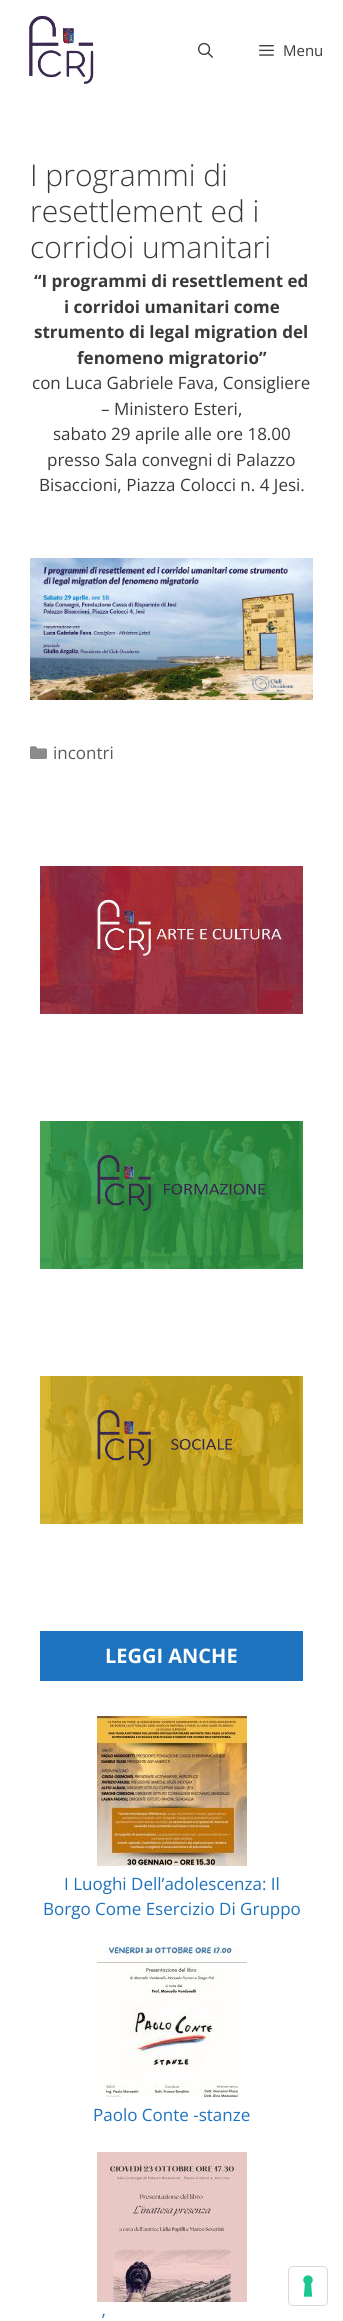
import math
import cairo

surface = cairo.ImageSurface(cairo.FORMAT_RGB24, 343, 2321)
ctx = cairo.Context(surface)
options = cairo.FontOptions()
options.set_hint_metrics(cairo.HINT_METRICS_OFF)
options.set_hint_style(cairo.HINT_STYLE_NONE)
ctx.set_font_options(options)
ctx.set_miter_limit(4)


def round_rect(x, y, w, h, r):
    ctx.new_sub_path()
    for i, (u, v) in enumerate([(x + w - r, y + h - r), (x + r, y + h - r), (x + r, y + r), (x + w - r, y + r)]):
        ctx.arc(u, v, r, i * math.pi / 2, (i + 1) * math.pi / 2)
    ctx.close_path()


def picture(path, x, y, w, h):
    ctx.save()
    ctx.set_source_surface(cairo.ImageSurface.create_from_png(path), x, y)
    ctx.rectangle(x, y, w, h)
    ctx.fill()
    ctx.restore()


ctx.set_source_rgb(1, 1, 1)
ctx.paint()
picture("img1.png", 29, 15, 65, 69)
picture("img2.png", 198, 42, 15, 16)
picture("img3.png", 259, 45, 15, 11)
ctx.select_font_face("Open Sans")
ctx.set_font_size(15)
ctx.set_source_rgb(0.227, 0.227, 0.227)
ctx.move_to(283, 56)
ctx.show_text("Menu")
ctx.select_font_face("Open Sans Light")
ctx.set_font_size(30)
ctx.move_to(30, 186)
ctx.show_text("I programmi di")
ctx.move_to(30, 222)
ctx.show_text("resettlement ed i")
ctx.move_to(30, 258)
ctx.show_text("corridoi umanitari")
ctx.select_font_face("Open Sans", cairo.FONT_SLANT_NORMAL, cairo.FONT_WEIGHT_BOLD)
ctx.set_font_size(17)
ctx.move_to(34, 287)
ctx.show_text("“I programmi di resettlement ed")
ctx.move_to(64, 313)
ctx.show_text("i corridoi umanitari come")
ctx.move_to(34, 338)
ctx.show_text("strumento di legal migration del")
ctx.move_to(77, 364)
ctx.show_text("fenomeno migratorio”")
ctx.select_font_face("Open Sans")
ctx.move_to(32, 389)
ctx.show_text("con Luca Gabriele Fava, Consigliere")
ctx.move_to(101, 415)
ctx.show_text("– Ministero Esteri,")
ctx.move_to(53, 440)
ctx.show_text("sabato 29 aprile alle ore 18.00")
ctx.move_to(47, 466)
ctx.show_text("presso Sala convegni di Palazzo")
ctx.move_to(39, 491)
ctx.show_text("Bisaccioni, Piazza Colocci n. 4 Jesi.")
picture("img4.png", 30, 558, 283, 142)
picture("img5.png", 30, 746, 17, 13)
ctx.set_source_rgb(0.349, 0.349, 0.349)
ctx.move_to(53, 759)
ctx.show_text("incontri")
picture("img6.png", 40, 866, 263, 148)
picture("img7.png", 40, 1121, 263, 148)
picture("img8.png", 40, 1376, 263, 148)
ctx.set_source_rgb(0.118, 0.451, 0.745)
ctx.rectangle(40, 1631, 263, 50)
ctx.fill()
ctx.select_font_face("Open Sans", cairo.FONT_SLANT_NORMAL, cairo.FONT_WEIGHT_BOLD)
ctx.set_font_size(20)
ctx.set_source_rgb(1, 1, 1)
ctx.move_to(105, 1663)
ctx.show_text("LEGGI ANCHE")
picture("img9.png", 97, 1716, 150, 150)
ctx.select_font_face("Open Sans")
ctx.set_font_size(17)
ctx.set_source_rgb(0.118, 0.451, 0.745)
ctx.move_to(64, 1890)
ctx.show_text("I Luoghi Dell’adolescenza: Il")
ctx.move_to(43, 1915)
ctx.show_text("Borgo Come Esercizio Di Gruppo")
picture("img10.png", 97, 1947, 150, 150)
ctx.move_to(93, 2121)
ctx.show_text("Paolo Conte -stanze")
picture("img11.png", 97, 2152, 150, 150)
ctx.move_to(102, 2326)
ctx.show_text("’")
round_rect(288.5, 2266.5, 39, 39, 4.5)
ctx.set_source_rgb(0.851, 0.851, 0.851)
ctx.set_line_width(1)
ctx.stroke()
ctx.set_source_rgb(1, 1, 1)
round_rect(289, 2267, 38, 38, 4)
ctx.fill()
picture("img12.png", 303, 2275, 10, 22)
surface.write_to_png("page.png")
